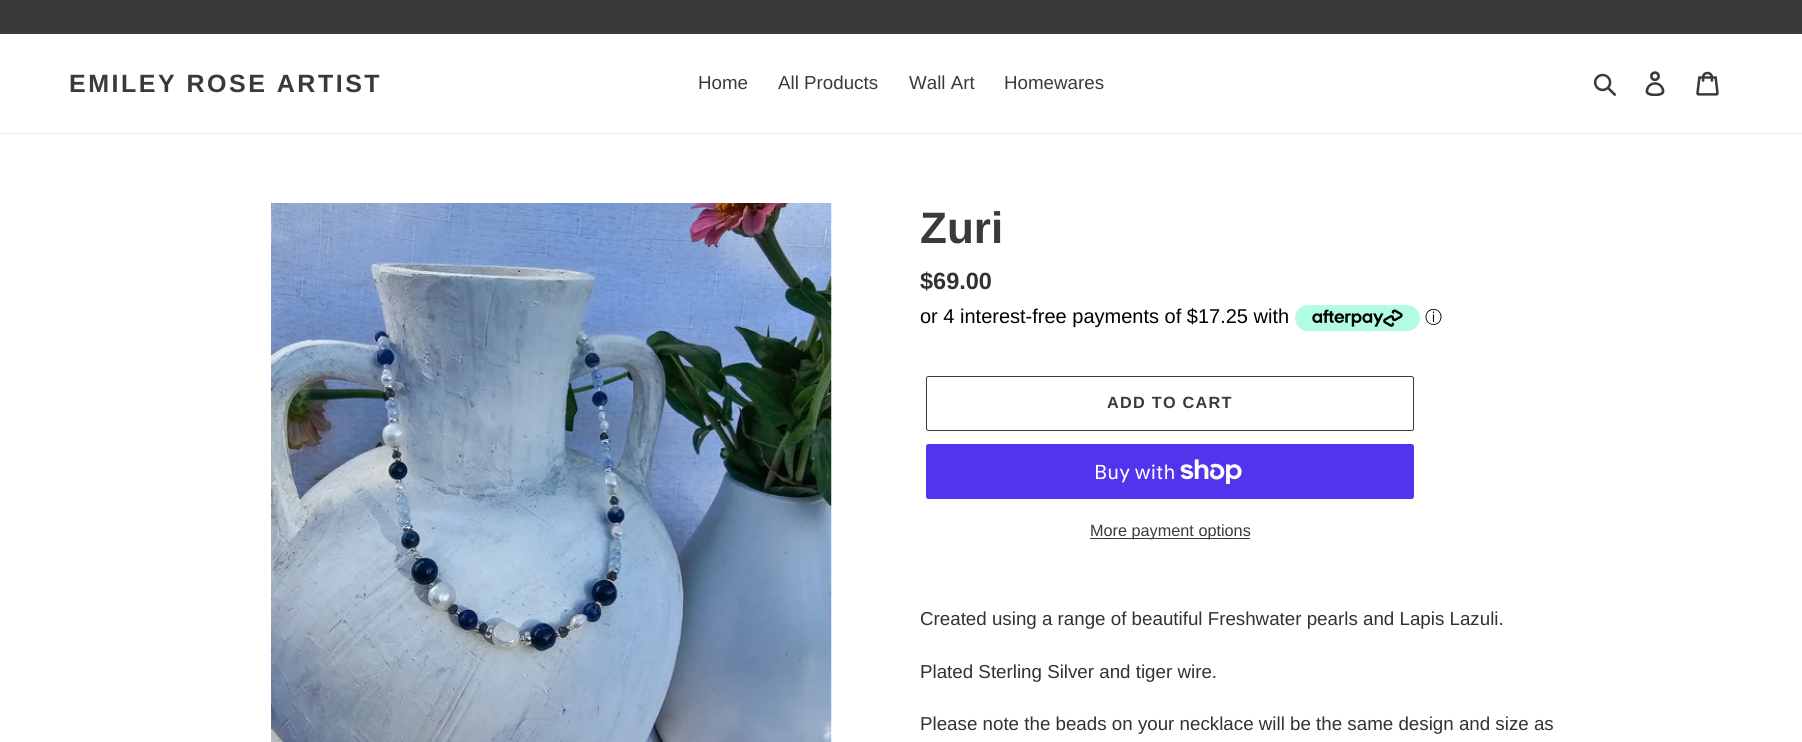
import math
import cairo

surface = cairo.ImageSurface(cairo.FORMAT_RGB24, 1802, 742)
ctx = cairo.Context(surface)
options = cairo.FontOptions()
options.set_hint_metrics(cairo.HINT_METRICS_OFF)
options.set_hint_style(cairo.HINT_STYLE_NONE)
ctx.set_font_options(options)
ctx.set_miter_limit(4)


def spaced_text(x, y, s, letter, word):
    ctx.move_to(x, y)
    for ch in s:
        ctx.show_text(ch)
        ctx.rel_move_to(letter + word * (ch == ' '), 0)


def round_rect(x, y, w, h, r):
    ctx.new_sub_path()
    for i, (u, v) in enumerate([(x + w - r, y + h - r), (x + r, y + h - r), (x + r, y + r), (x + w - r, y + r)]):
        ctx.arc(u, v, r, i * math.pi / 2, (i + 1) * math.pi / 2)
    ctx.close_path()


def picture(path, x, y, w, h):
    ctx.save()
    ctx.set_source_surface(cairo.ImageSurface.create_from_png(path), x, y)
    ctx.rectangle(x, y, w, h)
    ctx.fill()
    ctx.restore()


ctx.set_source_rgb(1, 1, 1)
ctx.paint()
ctx.set_source_rgb(0.227, 0.227, 0.227)
ctx.rectangle(0, 0, 1802, 34)
ctx.fill()
ctx.set_source_rgb(0.922, 0.922, 0.922)
ctx.rectangle(0, 133, 1802, 1)
ctx.fill()
ctx.select_font_face("Liberation Sans", cairo.FONT_SLANT_NORMAL, cairo.FONT_WEIGHT_BOLD)
ctx.set_font_size(25)
ctx.set_source_rgb(0.227, 0.227, 0.227)
spaced_text(69, 92, "EMILEY ROSE ARTIST", 2.5, 0)
ctx.select_font_face("Liberation Sans")
ctx.set_font_size(18.75)
ctx.move_to(698, 89)
ctx.show_text("Home")
ctx.move_to(778, 89)
ctx.show_text("All Products")
ctx.move_to(909, 89)
ctx.show_text("Wall Art")
ctx.move_to(1004, 89)
ctx.show_text("Homewares")
picture("img1.png", 1593, 73, 23, 23)
picture("img2.png", 1645, 71, 20, 25)
picture("img3.png", 1696, 71, 23, 25)
picture("img4.png", 271, 203, 561, 539)
ctx.select_font_face("Liberation Sans", cairo.FONT_SLANT_NORMAL, cairo.FONT_WEIGHT_BOLD)
ctx.set_font_size(44)
ctx.move_to(920, 243)
ctx.show_text("Zuri")
ctx.set_font_size(23.5)
ctx.set_source_rgb(0.2, 0.196, 0.196)
ctx.move_to(920, 289)
ctx.show_text("$69.00")
ctx.select_font_face("Liberation Sans")
ctx.set_font_size(20)
ctx.set_source_rgb(0, 0, 0)
ctx.move_to(920, 323)
ctx.show_text("or 4 interest-free payments of $17.25 with")
picture("img5.png", 1295, 305, 125, 27)
ctx.select_font_face("WenQuanYi Zen Hei Medium")
ctx.set_font_size(17)
ctx.move_to(1425, 323)
ctx.show_text("ⓘ")
round_rect(926.5, 376.5, 487, 54, 2)
ctx.set_source_rgb(0.227, 0.227, 0.227)
ctx.set_line_width(1)
ctx.stroke()
ctx.select_font_face("Liberation Sans", cairo.FONT_SLANT_NORMAL, cairo.FONT_WEIGHT_BOLD)
ctx.set_font_size(16.25)
spaced_text(1107, 408, "ADD TO CART", 1.25, 0)
ctx.set_source_rgb(0.329, 0.2, 0.922)
round_rect(926, 444, 488, 55, 2.5)
ctx.fill()
ctx.select_font_face("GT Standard")
ctx.set_font_size(20)
ctx.set_source_rgb(1, 1, 1)
ctx.move_to(1094, 479)
ctx.show_text("Buy with")
picture("img6.png", 1180, 459, 62, 25)
ctx.set_source_rgb(0.227, 0.227, 0.227)
ctx.rectangle(1090, 538, 160, 1)
ctx.fill()
ctx.select_font_face("Liberation Sans")
ctx.set_font_size(16.25)
ctx.move_to(1090, 536)
ctx.show_text("More payment options")
ctx.set_font_size(18.75)
ctx.set_source_rgb(0.2, 0.196, 0.196)
ctx.move_to(920, 625)
ctx.show_text("Created using a range of beautiful Freshwater pearls and Lapis Lazuli.")
ctx.move_to(920, 678)
ctx.show_text("Plated Sterling Silver and tiger wire.")
ctx.move_to(920, 730)
ctx.show_text("Please note the beads on your necklace will be the same design and size as")
surface.write_to_png("page.png")
